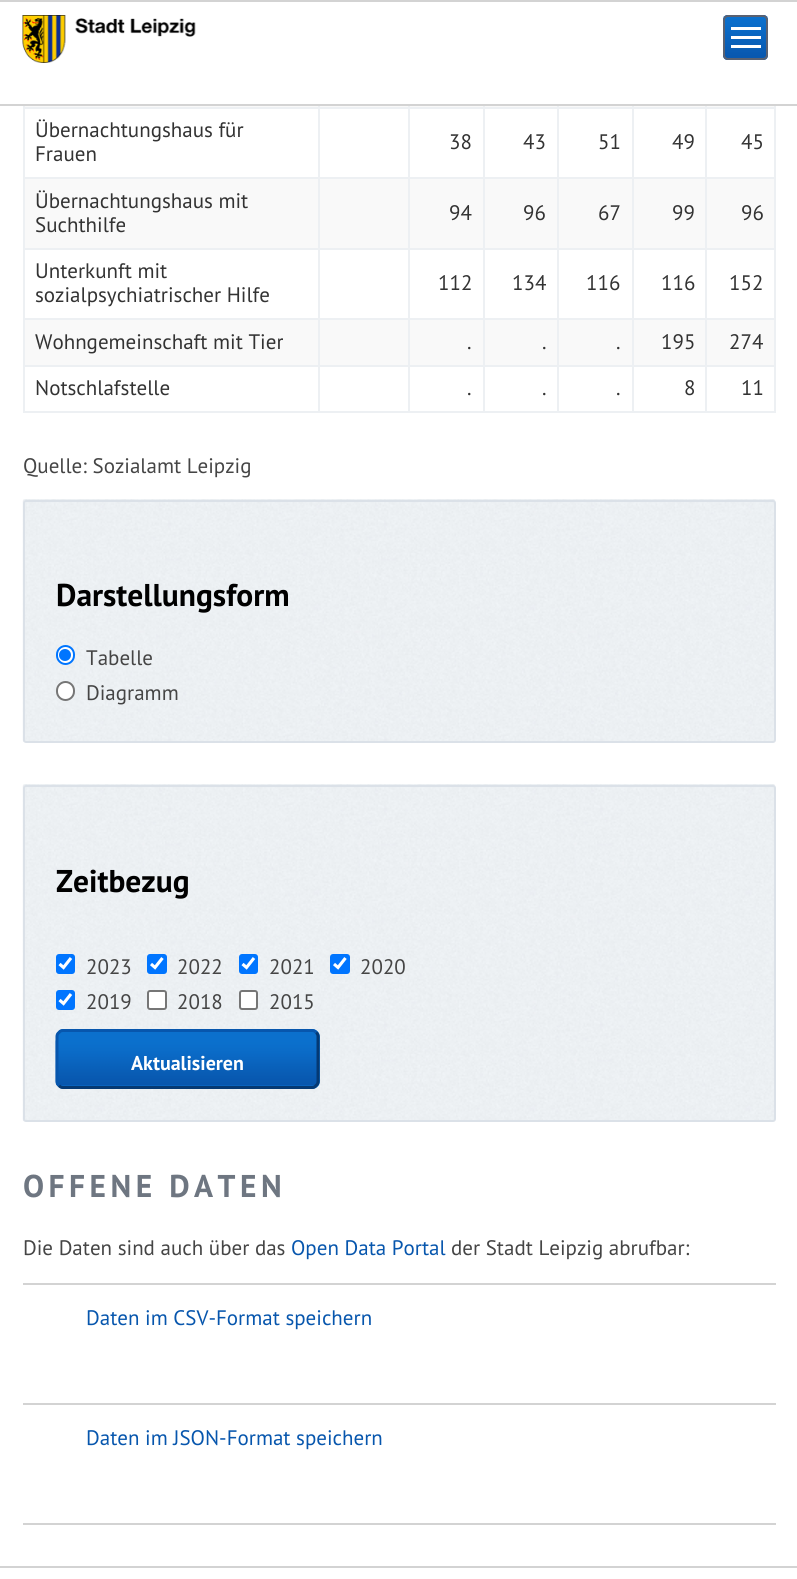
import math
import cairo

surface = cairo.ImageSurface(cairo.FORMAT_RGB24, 797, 1579)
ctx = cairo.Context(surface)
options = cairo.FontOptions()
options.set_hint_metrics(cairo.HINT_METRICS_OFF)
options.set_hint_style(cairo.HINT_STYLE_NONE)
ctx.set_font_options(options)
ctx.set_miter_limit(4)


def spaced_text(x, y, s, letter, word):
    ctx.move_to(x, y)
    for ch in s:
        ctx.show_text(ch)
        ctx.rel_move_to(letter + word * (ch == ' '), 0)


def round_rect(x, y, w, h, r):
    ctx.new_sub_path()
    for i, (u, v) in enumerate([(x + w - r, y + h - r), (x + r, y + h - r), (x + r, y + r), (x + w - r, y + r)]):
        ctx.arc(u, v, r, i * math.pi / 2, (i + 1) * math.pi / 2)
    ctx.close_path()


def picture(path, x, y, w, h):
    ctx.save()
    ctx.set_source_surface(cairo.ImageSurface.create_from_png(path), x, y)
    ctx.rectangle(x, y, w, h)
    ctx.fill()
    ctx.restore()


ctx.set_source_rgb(1, 1, 1)
ctx.paint()
ctx.set_source_rgb(0.827, 0.827, 0.827)
ctx.rectangle(0, 0, 797, 2)
ctx.fill()
ctx.rectangle(0, 104, 797, 2)
ctx.fill()
picture("img1.png", 22, 15, 174, 48)
picture("img2.png", 723, 15, 45, 45)
round_rect(724, 16, 43, 43, 4)
ctx.set_source_rgb(0.353, 0.38, 0.443)
ctx.stroke()
ctx.set_source_rgb(1, 1, 1)
ctx.rectangle(731, 27, 30, 3)
ctx.fill()
ctx.rectangle(731, 36, 30, 3)
ctx.fill()
ctx.rectangle(731, 45, 30, 3)
ctx.fill()
ctx.set_source_rgb(0.976, 0.976, 0.976)
ctx.rectangle(25, 106, 749, 1)
ctx.fill()
ctx.set_source_rgb(0.929, 0.941, 0.953)
ctx.rectangle(705, 107, 71, 2)
ctx.fill()
ctx.rectangle(705, 177, 71, 2)
ctx.fill()
ctx.set_source_rgb(0.976, 0.976, 0.976)
ctx.rectangle(25, 179, 749, 69)
ctx.fill()
ctx.set_source_rgb(0.929, 0.941, 0.953)
ctx.rectangle(705, 248, 71, 2)
ctx.fill()
ctx.rectangle(705, 318, 71, 2)
ctx.fill()
ctx.set_source_rgb(0.976, 0.976, 0.976)
ctx.rectangle(25, 320, 749, 45)
ctx.fill()
ctx.set_source_rgb(0.929, 0.941, 0.953)
ctx.rectangle(705, 365, 71, 2)
ctx.fill()
ctx.rectangle(774, 365, 2, 48)
ctx.fill()
ctx.rectangle(705, 411, 71, 2)
ctx.fill()
ctx.rectangle(705, 365, 2, 48)
ctx.fill()
ctx.rectangle(632, 365, 75, 2)
ctx.fill()
ctx.rectangle(705, 318, 2, 48)
ctx.fill()
ctx.rectangle(632, 318, 75, 2)
ctx.fill()
ctx.rectangle(705, 248, 2, 72)
ctx.fill()
ctx.rectangle(632, 248, 75, 2)
ctx.fill()
ctx.rectangle(705, 177, 2, 72)
ctx.fill()
ctx.rectangle(632, 177, 75, 2)
ctx.fill()
ctx.rectangle(705, 106, 2, 73)
ctx.fill()
ctx.rectangle(632, 107, 75, 2)
ctx.fill()
ctx.rectangle(632, 411, 75, 2)
ctx.fill()
ctx.rectangle(632, 365, 2, 48)
ctx.fill()
ctx.rectangle(557, 365, 76, 2)
ctx.fill()
ctx.rectangle(632, 318, 2, 48)
ctx.fill()
ctx.rectangle(557, 318, 76, 2)
ctx.fill()
ctx.rectangle(632, 248, 2, 72)
ctx.fill()
ctx.rectangle(557, 248, 76, 2)
ctx.fill()
ctx.rectangle(632, 177, 2, 72)
ctx.fill()
ctx.rectangle(557, 177, 76, 2)
ctx.fill()
ctx.rectangle(632, 106, 2, 73)
ctx.fill()
ctx.rectangle(557, 107, 76, 2)
ctx.fill()
ctx.rectangle(557, 411, 76, 2)
ctx.fill()
ctx.rectangle(557, 365, 2, 48)
ctx.fill()
ctx.rectangle(483, 365, 75, 2)
ctx.fill()
ctx.rectangle(557, 318, 2, 48)
ctx.fill()
ctx.rectangle(483, 318, 75, 2)
ctx.fill()
ctx.rectangle(557, 248, 2, 72)
ctx.fill()
ctx.rectangle(483, 248, 75, 2)
ctx.fill()
ctx.rectangle(557, 177, 2, 72)
ctx.fill()
ctx.rectangle(483, 177, 75, 2)
ctx.fill()
ctx.rectangle(557, 106, 2, 73)
ctx.fill()
ctx.rectangle(483, 107, 75, 2)
ctx.fill()
ctx.rectangle(483, 411, 75, 2)
ctx.fill()
ctx.rectangle(483, 365, 2, 48)
ctx.fill()
ctx.rectangle(408, 365, 77, 2)
ctx.fill()
ctx.rectangle(483, 318, 2, 48)
ctx.fill()
ctx.rectangle(408, 318, 77, 2)
ctx.fill()
ctx.rectangle(483, 248, 2, 72)
ctx.fill()
ctx.rectangle(408, 248, 77, 2)
ctx.fill()
ctx.rectangle(483, 177, 2, 72)
ctx.fill()
ctx.rectangle(408, 177, 77, 2)
ctx.fill()
ctx.rectangle(483, 106, 2, 73)
ctx.fill()
ctx.rectangle(408, 107, 77, 2)
ctx.fill()
ctx.rectangle(408, 411, 77, 2)
ctx.fill()
ctx.rectangle(408, 365, 2, 48)
ctx.fill()
ctx.rectangle(318, 365, 92, 2)
ctx.fill()
ctx.rectangle(408, 318, 2, 48)
ctx.fill()
ctx.rectangle(318, 318, 92, 2)
ctx.fill()
ctx.rectangle(408, 248, 2, 72)
ctx.fill()
ctx.rectangle(318, 248, 92, 2)
ctx.fill()
ctx.rectangle(408, 177, 2, 72)
ctx.fill()
ctx.rectangle(318, 177, 92, 2)
ctx.fill()
ctx.rectangle(408, 106, 2, 73)
ctx.fill()
ctx.rectangle(318, 107, 92, 2)
ctx.fill()
ctx.rectangle(318, 411, 92, 2)
ctx.fill()
ctx.rectangle(318, 365, 2, 48)
ctx.fill()
ctx.rectangle(23, 365, 297, 2)
ctx.fill()
ctx.rectangle(318, 318, 2, 48)
ctx.fill()
ctx.rectangle(23, 318, 297, 2)
ctx.fill()
ctx.rectangle(318, 248, 2, 72)
ctx.fill()
ctx.rectangle(23, 248, 297, 2)
ctx.fill()
ctx.rectangle(318, 177, 2, 72)
ctx.fill()
ctx.rectangle(23, 177, 297, 2)
ctx.fill()
ctx.rectangle(318, 106, 2, 73)
ctx.fill()
ctx.rectangle(23, 107, 297, 2)
ctx.fill()
ctx.rectangle(23, 411, 297, 2)
ctx.fill()
ctx.rectangle(23, 365, 2, 48)
ctx.fill()
ctx.rectangle(23, 318, 2, 48)
ctx.fill()
ctx.rectangle(23, 248, 2, 72)
ctx.fill()
ctx.rectangle(23, 177, 2, 72)
ctx.fill()
ctx.rectangle(23, 106, 2, 73)
ctx.fill()
ctx.select_font_face("PT Sans")
ctx.set_font_size(21)
ctx.set_source_rgb(0.2, 0.2, 0.2)
ctx.move_to(35, 137)
ctx.show_text("Übernachtungshaus für")
ctx.move_to(35, 161)
ctx.show_text("Frauen")
ctx.move_to(449, 149)
ctx.show_text("38")
ctx.move_to(523, 149)
ctx.show_text("43")
ctx.move_to(598, 149)
ctx.show_text("51")
ctx.move_to(672, 149)
ctx.show_text("49")
ctx.set_source_rgb(0.929, 0.941, 0.953)
ctx.rectangle(774, 318, 2, 48)
ctx.fill()
ctx.rectangle(774, 248, 2, 72)
ctx.fill()
ctx.rectangle(774, 177, 2, 72)
ctx.fill()
ctx.rectangle(774, 106, 2, 73)
ctx.fill()
ctx.set_source_rgb(0.2, 0.2, 0.2)
ctx.move_to(741, 149)
ctx.show_text("45")
ctx.move_to(35, 208)
ctx.show_text("Übernachtungshaus mit")
ctx.move_to(35, 232)
ctx.show_text("Suchthilfe")
ctx.move_to(449, 220)
ctx.show_text("94")
ctx.move_to(523, 220)
ctx.show_text("96")
ctx.move_to(598, 220)
ctx.show_text("67")
ctx.move_to(672, 220)
ctx.show_text("99")
ctx.move_to(741, 220)
ctx.show_text("96")
ctx.move_to(35, 278)
ctx.show_text("Unterkunft mit")
ctx.move_to(35, 302)
ctx.show_text("sozialpsychiatrischer Hilfe")
ctx.move_to(438, 290)
ctx.show_text("112")
ctx.move_to(512, 290)
ctx.show_text("134")
ctx.move_to(586, 290)
ctx.show_text("116")
ctx.move_to(661, 290)
ctx.show_text("116")
ctx.move_to(729, 290)
ctx.show_text("152")
ctx.move_to(35, 349)
ctx.show_text("Wohngemeinschaft mit Tier")
ctx.move_to(467, 349)
ctx.show_text(".")
ctx.move_to(542, 349)
ctx.show_text(".")
ctx.move_to(616, 349)
ctx.show_text(".")
ctx.move_to(661, 349)
ctx.show_text("195")
ctx.move_to(729, 349)
ctx.show_text("274")
ctx.move_to(35, 395)
ctx.show_text("Notschlafstelle")
ctx.move_to(467, 395)
ctx.show_text(".")
ctx.move_to(542, 395)
ctx.show_text(".")
ctx.move_to(616, 395)
ctx.show_text(".")
ctx.move_to(684, 395)
ctx.show_text("8")
ctx.move_to(741, 395)
ctx.show_text("11")
ctx.set_source_rgb(0.271, 0.271, 0.271)
ctx.move_to(23, 473)
ctx.show_text("Quelle: Sozialamt Leipzig")
picture("img3.png", 22, 499, 754, 243)
round_rect(24, 501, 751, 241, 2)
ctx.set_source_rgb(0.859, 0.882, 0.91)
ctx.stroke()
ctx.select_font_face("PT Sans", cairo.FONT_SLANT_NORMAL, cairo.FONT_WEIGHT_BOLD)
ctx.set_font_size(31.5)
ctx.set_source_rgb(0, 0, 0)
ctx.move_to(56, 606)
ctx.show_text("Darstellungsform")
ctx.set_source_rgb(1, 1, 1)
round_rect(57, 646, 17, 18, 8.5)
ctx.fill_preserve()
ctx.set_source_rgb(0, 0.459, 1)
ctx.stroke()
ctx.arc(65, 655, 6, 0, 2 * math.pi)
ctx.fill()
ctx.select_font_face("PT Sans")
ctx.set_font_size(21)
ctx.set_source_rgb(0.271, 0.271, 0.271)
ctx.move_to(86, 665)
ctx.show_text("Tabelle")
ctx.set_source_rgb(1, 1, 1)
round_rect(57, 682, 17, 18, 8.5)
ctx.fill_preserve()
ctx.set_source_rgb(0.463, 0.463, 0.463)
ctx.stroke()
ctx.set_source_rgb(0.271, 0.271, 0.271)
ctx.move_to(86, 700)
ctx.show_text("Diagramm")
picture("img4.png", 22, 784, 754, 338)
round_rect(24, 786, 751, 335, 2)
ctx.set_source_rgb(0.859, 0.882, 0.91)
ctx.stroke()
ctx.select_font_face("PT Sans", cairo.FONT_SLANT_NORMAL, cairo.FONT_WEIGHT_BOLD)
ctx.set_font_size(31.5)
ctx.set_source_rgb(0, 0, 0)
ctx.move_to(56, 892)
ctx.show_text("Zeitbezug")
ctx.set_source_rgb(0, 0.459, 1)
round_rect(56, 954, 19, 20, 3)
ctx.fill()
ctx.new_path()
ctx.move_to(59.5, 964)
ctx.line_to(63.5, 967.5)
ctx.line_to(71, 958)
ctx.set_source_rgb(1, 1, 1)
ctx.set_line_width(3.1)
ctx.stroke()
ctx.select_font_face("PT Sans")
ctx.set_font_size(21)
ctx.set_source_rgb(0.271, 0.271, 0.271)
ctx.move_to(86, 974)
ctx.show_text("2023")
ctx.set_source_rgb(0, 0.459, 1)
round_rect(147, 954, 20, 20, 3)
ctx.fill()
ctx.new_path()
ctx.move_to(151, 964)
ctx.line_to(155, 967.5)
ctx.line_to(162.5, 958)
ctx.set_source_rgb(1, 1, 1)
ctx.stroke()
ctx.set_source_rgb(0.271, 0.271, 0.271)
ctx.move_to(177, 974)
ctx.show_text("2022")
ctx.set_source_rgb(0, 0.459, 1)
round_rect(239, 954, 19, 20, 3)
ctx.fill()
ctx.new_path()
ctx.move_to(242.5, 964)
ctx.line_to(246.5, 967.5)
ctx.line_to(254, 958)
ctx.set_source_rgb(1, 1, 1)
ctx.stroke()
ctx.set_source_rgb(0.271, 0.271, 0.271)
ctx.move_to(269, 974)
ctx.show_text("2021")
ctx.set_source_rgb(0, 0.459, 1)
round_rect(330, 954, 20, 20, 3)
ctx.fill()
ctx.new_path()
ctx.move_to(334, 964)
ctx.line_to(338, 967.5)
ctx.line_to(345.5, 958)
ctx.set_source_rgb(1, 1, 1)
ctx.stroke()
ctx.set_source_rgb(0.271, 0.271, 0.271)
ctx.move_to(360, 974)
ctx.show_text("2020")
ctx.set_source_rgb(0, 0.459, 1)
round_rect(56, 990, 19, 20, 3)
ctx.fill()
ctx.new_path()
ctx.move_to(59.5, 1000)
ctx.line_to(63.5, 1003.5)
ctx.line_to(71, 994)
ctx.set_source_rgb(1, 1, 1)
ctx.stroke()
ctx.set_source_rgb(0.271, 0.271, 0.271)
ctx.move_to(86, 1009)
ctx.show_text("2019")
ctx.set_source_rgb(1, 1, 1)
round_rect(148, 991, 18, 18, 2)
ctx.fill_preserve()
ctx.set_source_rgb(0.463, 0.463, 0.463)
ctx.set_line_width(2)
ctx.stroke()
ctx.set_source_rgb(0.271, 0.271, 0.271)
ctx.move_to(177, 1009)
ctx.show_text("2018")
ctx.set_source_rgb(1, 1, 1)
round_rect(240, 991, 17, 18, 2)
ctx.fill_preserve()
ctx.set_source_rgb(0.463, 0.463, 0.463)
ctx.stroke()
ctx.set_source_rgb(0.271, 0.271, 0.271)
ctx.move_to(269, 1009)
ctx.show_text("2015")
ctx.set_source_rgb(0.043, 0.439, 0.804)
round_rect(56, 1029, 264, 60, 8)
ctx.fill()
picture("img5.png", 55, 1040, 265, 46)
ctx.new_path()
ctx.move_to(316, 1032.5)
ctx.curve_to(317.5, 1033.5, 318, 1035, 318, 1036.5)
ctx.line_to(318, 1081.5)
ctx.curve_to(318, 1083, 317.5, 1084.5, 316, 1085.5)
ctx.curve_to(315, 1087, 313.5, 1087.5, 312, 1087.5)
ctx.line_to(63, 1087.5)
ctx.curve_to(61.5, 1087.5, 60, 1087, 59, 1085.5)
ctx.set_source_rgb(0.02, 0.224, 0.451)
ctx.set_line_width(3)
ctx.stroke()
ctx.new_path()
ctx.move_to(59, 1085.5)
ctx.curve_to(57.5, 1084.5, 57, 1083, 57, 1081.5)
ctx.line_to(57, 1036.5)
ctx.curve_to(57, 1035, 57.5, 1033.5, 59, 1032.5)
ctx.curve_to(60, 1031, 61.5, 1030.5, 63, 1030.5)
ctx.line_to(312, 1030.5)
ctx.curve_to(313.5, 1030.5, 315, 1031, 316, 1032.5)
ctx.set_source_rgb(0.031, 0.337, 0.678)
ctx.stroke()
ctx.select_font_face("PT Sans", cairo.FONT_SLANT_NORMAL, cairo.FONT_WEIGHT_BOLD)
ctx.set_font_size(20)
ctx.set_source_rgb(1, 1, 1)
ctx.move_to(131, 1070)
ctx.show_text("Aktualisieren")
ctx.set_font_size(31.5)
ctx.set_source_rgb(0.431, 0.463, 0.506)
spaced_text(23, 1197, "OFFENE DATEN", 4.5, 0)
ctx.select_font_face("PT Sans")
ctx.set_font_size(21)
ctx.set_source_rgb(0.271, 0.271, 0.271)
ctx.move_to(23, 1255)
ctx.show_text("Die Daten sind auch über das")
ctx.set_source_rgb(0.031, 0.337, 0.678)
ctx.move_to(291, 1255)
ctx.show_text("Open Data Portal")
ctx.set_source_rgb(0.271, 0.271, 0.271)
ctx.move_to(451, 1255)
ctx.show_text("der Stadt Leipzig abrufbar:")
ctx.set_source_rgb(0.827, 0.827, 0.827)
ctx.rectangle(23, 1283, 753, 2)
ctx.fill()
ctx.rectangle(23, 1403, 753, 2)
ctx.fill()
ctx.set_source_rgb(0.031, 0.337, 0.678)
ctx.move_to(86, 1325)
ctx.show_text("Daten im CSV-Format speichern")
ctx.set_source_rgb(0.827, 0.827, 0.827)
ctx.rectangle(23, 1523, 753, 2)
ctx.fill()
ctx.set_source_rgb(0.031, 0.337, 0.678)
ctx.move_to(86, 1445)
ctx.show_text("Daten im JSON-Format speichern")
ctx.set_source_rgb(0.827, 0.827, 0.827)
ctx.rectangle(0, 1566, 797, 2)
ctx.fill()
surface.write_to_png("page.png")
